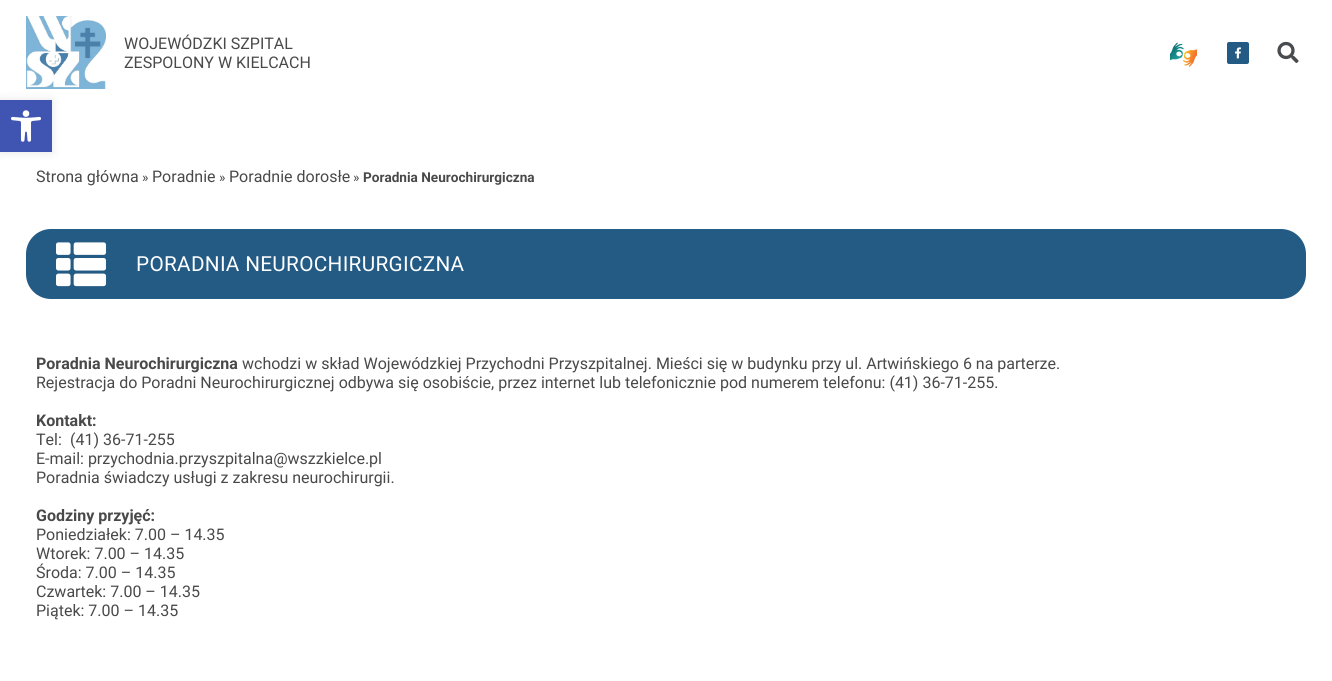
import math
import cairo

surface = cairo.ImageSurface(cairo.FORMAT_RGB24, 1332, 681)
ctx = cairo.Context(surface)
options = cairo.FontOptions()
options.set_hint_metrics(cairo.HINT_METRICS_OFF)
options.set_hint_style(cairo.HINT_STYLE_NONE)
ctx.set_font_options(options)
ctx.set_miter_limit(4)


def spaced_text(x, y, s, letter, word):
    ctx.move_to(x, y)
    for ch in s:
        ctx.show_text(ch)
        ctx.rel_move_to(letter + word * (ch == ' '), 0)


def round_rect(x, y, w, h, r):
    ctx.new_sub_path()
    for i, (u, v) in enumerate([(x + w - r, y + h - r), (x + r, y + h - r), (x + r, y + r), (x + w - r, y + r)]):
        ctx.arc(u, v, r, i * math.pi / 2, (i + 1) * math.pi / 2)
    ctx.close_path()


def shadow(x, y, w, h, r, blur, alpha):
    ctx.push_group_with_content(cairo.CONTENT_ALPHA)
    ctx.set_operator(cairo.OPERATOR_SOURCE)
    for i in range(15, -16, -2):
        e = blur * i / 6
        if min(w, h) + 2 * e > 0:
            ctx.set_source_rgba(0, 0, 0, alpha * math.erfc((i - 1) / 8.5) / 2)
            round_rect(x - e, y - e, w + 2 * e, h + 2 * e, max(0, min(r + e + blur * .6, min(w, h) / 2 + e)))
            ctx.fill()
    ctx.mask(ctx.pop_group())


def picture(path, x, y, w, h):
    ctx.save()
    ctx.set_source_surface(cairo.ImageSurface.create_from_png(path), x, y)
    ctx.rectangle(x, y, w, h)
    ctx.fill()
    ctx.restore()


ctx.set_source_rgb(1, 1, 1)
ctx.paint()
picture("img1.png", 26, 16, 80, 73)
ctx.select_font_face("Roboto")
ctx.set_font_size(16)
ctx.set_source_rgb(0.286, 0.286, 0.286)
ctx.move_to(124, 49)
ctx.show_text("WOJEWÓDZKI SZPITAL")
ctx.move_to(124, 68)
ctx.show_text("ZESPOLONY W KIELCACH")
picture("img2.png", 1170, 42, 27, 25)
ctx.set_source_rgb(0.137, 0.357, 0.522)
round_rect(1227, 42, 22, 22, 2)
ctx.fill()
picture("img3.png", 1235, 47, 6, 12)
picture("img4.png", 1277, 41, 22, 22)
ctx.set_source_rgb(0, 0, 0)
shadow(0, 100, 52, 52, 0, 5, 0.1)
ctx.set_source_rgb(0.251, 0.329, 0.698)
ctx.rectangle(0, 100, 52, 52)
ctx.fill()
picture("img5.png", 11, 110, 30, 32)
ctx.set_source_rgb(0.286, 0.286, 0.286)
ctx.move_to(36, 182)
ctx.show_text("Strona główna")
ctx.set_font_size(13.6)
ctx.move_to(142, 182)
ctx.show_text("»")
ctx.set_font_size(16)
ctx.move_to(152, 182)
ctx.show_text("Poradnie")
ctx.set_font_size(13.6)
ctx.move_to(219, 182)
ctx.show_text("»")
ctx.set_font_size(16)
ctx.move_to(229, 182)
ctx.show_text("Poradnie dorosłe")
ctx.set_font_size(13.6)
ctx.move_to(353, 182)
ctx.show_text("»")
ctx.select_font_face("Roboto", cairo.FONT_SLANT_NORMAL, cairo.FONT_WEIGHT_BOLD)
ctx.move_to(363, 182)
ctx.show_text("Poradnia Neurochirurgiczna")
ctx.set_source_rgb(0.137, 0.357, 0.522)
round_rect(26, 229, 1280, 70, 25)
ctx.fill()
picture("img6.png", 56, 242, 50, 45)
ctx.select_font_face("Roboto")
ctx.set_font_size(20.75)
ctx.set_source_rgb(1, 1, 1)
spaced_text(136, 271, "PORADNIA NEUROCHIRURGICZNA", 0.3, 0)
ctx.select_font_face("Roboto", cairo.FONT_SLANT_NORMAL, cairo.FONT_WEIGHT_BOLD)
ctx.set_font_size(16)
ctx.set_source_rgb(0.286, 0.286, 0.286)
ctx.move_to(36, 369)
ctx.show_text("Poradnia Neurochirurgiczna")
ctx.select_font_face("Roboto")
ctx.move_to(242, 369)
ctx.show_text("wchodzi w skład Wojewódzkiej Przychodni Przyszpitalnej. Mieści się w budynku przy ul. Artwińskiego 6 na parterze.")
ctx.move_to(36, 388)
ctx.show_text("Rejestracja do Poradni Neurochirurgicznej odbywa się osobiście, przez internet lub telefonicznie pod numerem telefonu: (41) 36-71-255.")
ctx.select_font_face("Roboto", cairo.FONT_SLANT_NORMAL, cairo.FONT_WEIGHT_BOLD)
ctx.move_to(36, 426)
ctx.show_text("Kontakt:")
ctx.select_font_face("Roboto")
ctx.move_to(36, 445)
ctx.show_text("Tel:")
ctx.move_to(70, 445)
ctx.show_text("(41) 36-71-255")
ctx.move_to(36, 464)
ctx.show_text("E-mail: przychodnia.przyszpitalna@wszzkielce.pl")
ctx.move_to(36, 483)
ctx.show_text("Poradnia świadczy usługi z zakresu neurochirurgii.")
ctx.select_font_face("Roboto", cairo.FONT_SLANT_NORMAL, cairo.FONT_WEIGHT_BOLD)
ctx.move_to(36, 521)
ctx.show_text("Godziny przyjęć:")
ctx.select_font_face("Roboto")
ctx.move_to(36, 540)
ctx.show_text("Poniedziałek: 7.00 – 14.35")
ctx.move_to(36, 559)
ctx.show_text("Wtorek: 7.00 – 14.35")
ctx.move_to(36, 578)
ctx.show_text("Środa: 7.00 – 14.35")
ctx.move_to(36, 597)
ctx.show_text("Czwartek: 7.00 – 14.35")
ctx.move_to(36, 616)
ctx.show_text("Piątek: 7.00 – 14.35")
surface.write_to_png("page.png")
